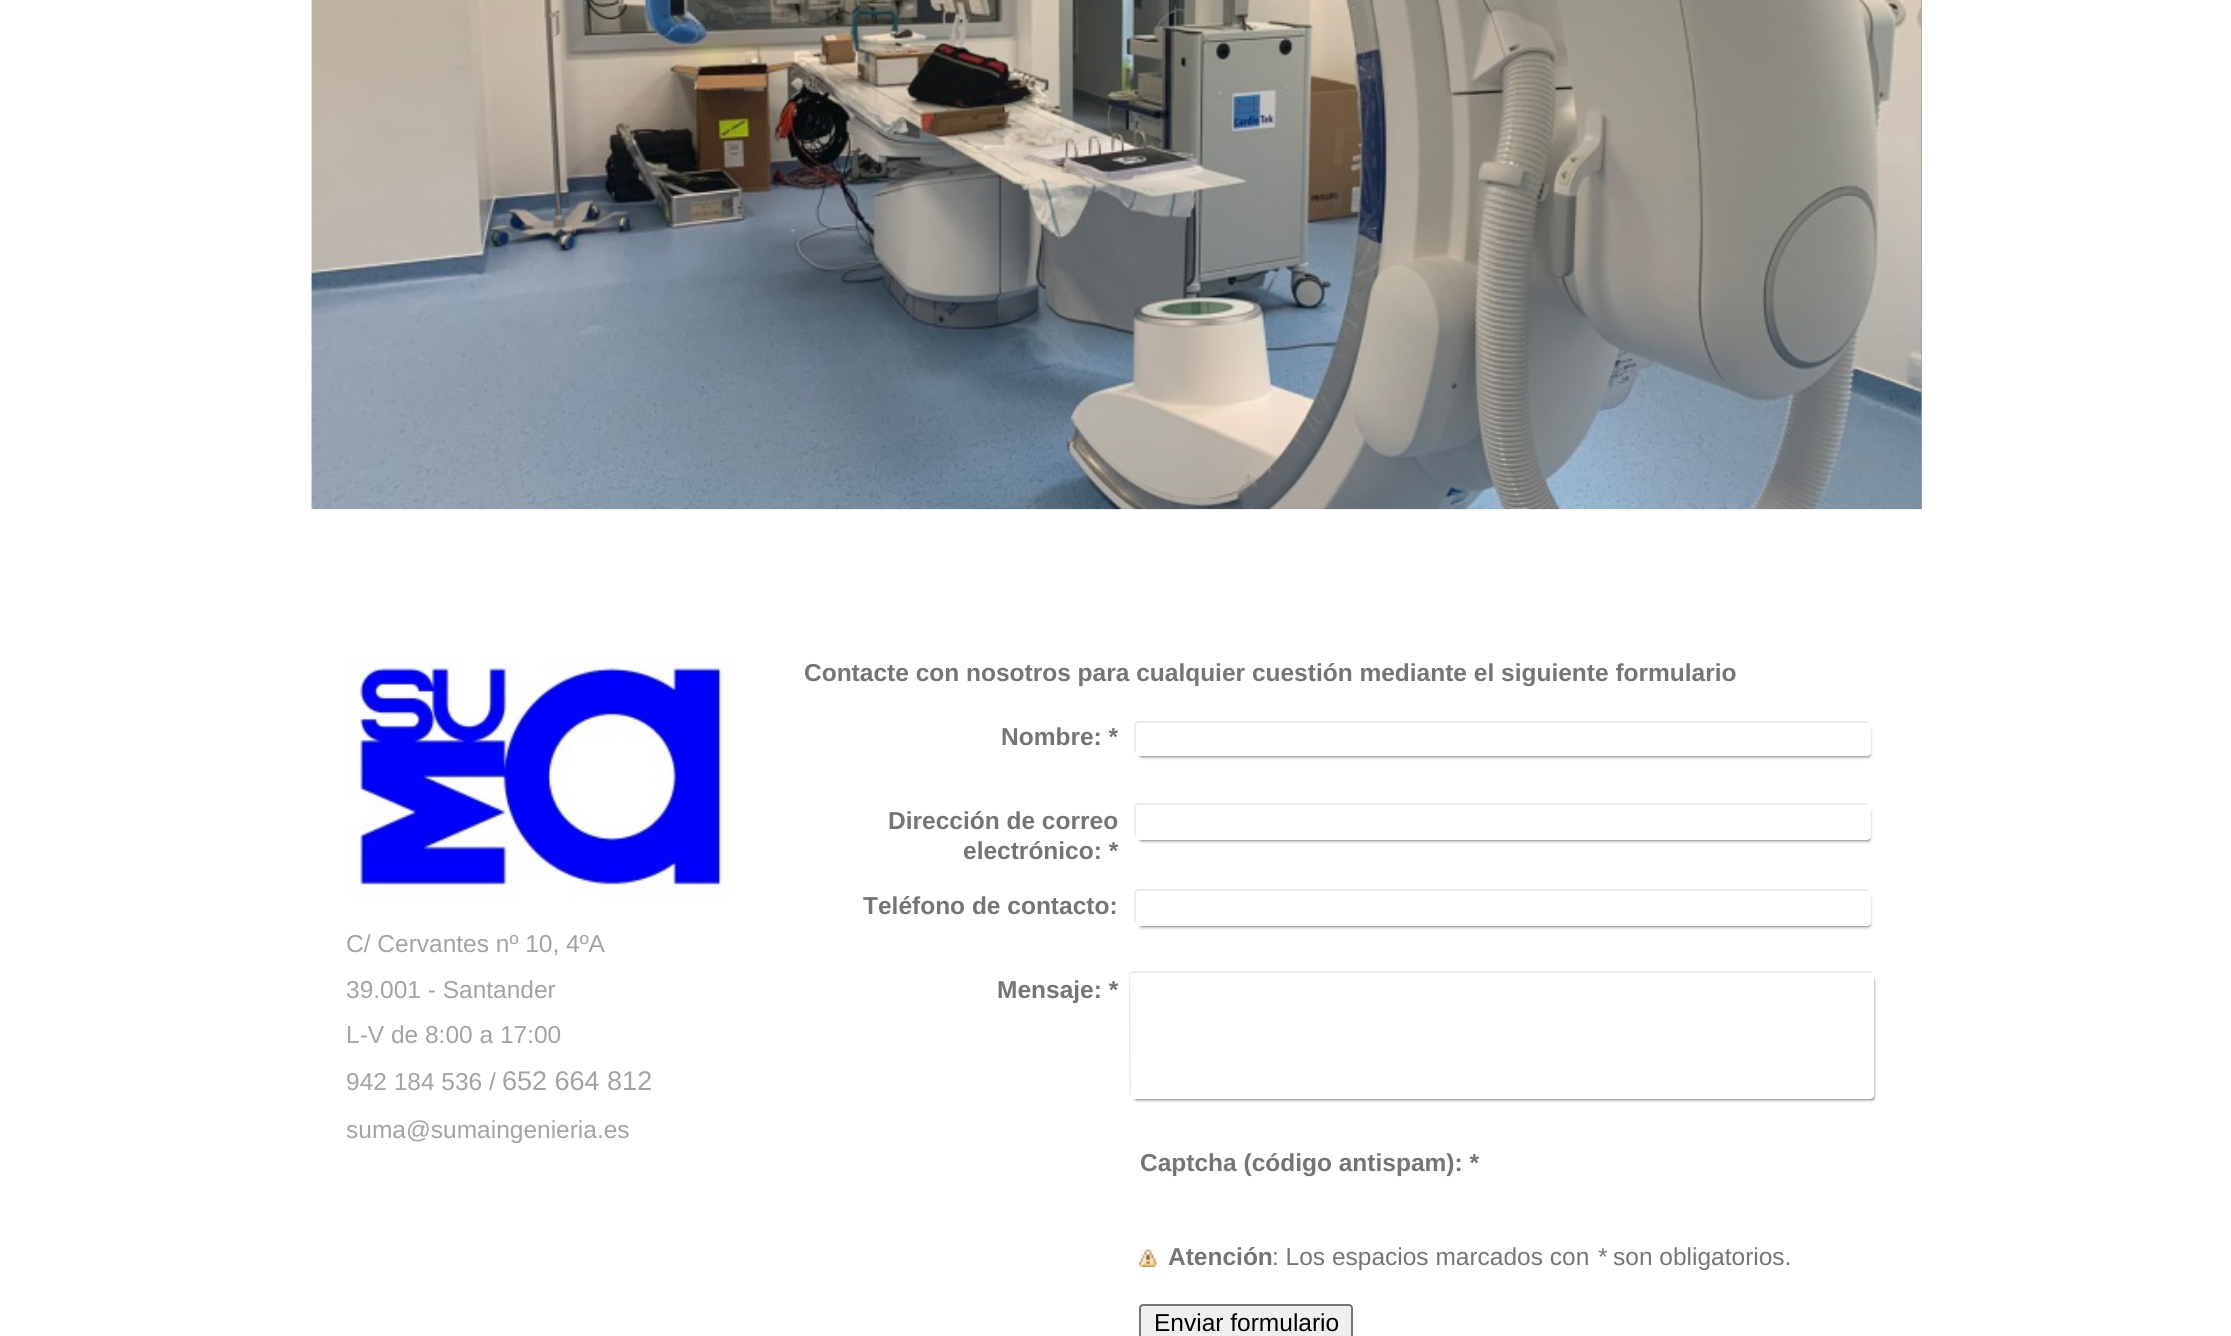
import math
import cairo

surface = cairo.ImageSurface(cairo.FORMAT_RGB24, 2231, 1336)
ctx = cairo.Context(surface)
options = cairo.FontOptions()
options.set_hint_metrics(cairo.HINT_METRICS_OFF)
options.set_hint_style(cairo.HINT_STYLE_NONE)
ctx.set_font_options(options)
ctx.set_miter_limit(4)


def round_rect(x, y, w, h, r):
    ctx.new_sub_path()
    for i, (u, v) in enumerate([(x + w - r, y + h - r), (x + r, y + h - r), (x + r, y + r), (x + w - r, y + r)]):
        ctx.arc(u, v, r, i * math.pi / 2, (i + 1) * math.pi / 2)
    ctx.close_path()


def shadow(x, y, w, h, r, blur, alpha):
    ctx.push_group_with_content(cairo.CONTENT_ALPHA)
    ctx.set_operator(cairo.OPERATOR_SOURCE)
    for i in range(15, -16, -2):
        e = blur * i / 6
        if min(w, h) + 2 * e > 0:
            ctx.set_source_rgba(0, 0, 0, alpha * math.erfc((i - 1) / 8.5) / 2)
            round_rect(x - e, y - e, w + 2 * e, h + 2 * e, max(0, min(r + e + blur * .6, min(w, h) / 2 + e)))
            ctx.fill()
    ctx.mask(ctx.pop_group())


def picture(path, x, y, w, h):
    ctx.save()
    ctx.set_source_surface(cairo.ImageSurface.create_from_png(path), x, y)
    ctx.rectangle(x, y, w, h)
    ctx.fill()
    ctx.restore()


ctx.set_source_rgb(1, 1, 1)
ctx.paint()
picture("img1.png", 311, 0, 1610, 510)
ctx.set_source_rgb(0.627, 0.627, 0.627)
ctx.rectangle(1921, 0, 1, 509)
ctx.fill()
picture("img2.png", 311, 0, 1611, 510)
picture("img3.png", 346, 656, 389, 243)
ctx.select_font_face("Liberation Sans")
ctx.set_font_size(24.5)
ctx.set_source_rgb(0.639, 0.639, 0.639)
ctx.move_to(346, 952)
ctx.show_text("C/ Cervantes nº 10, 4ºA")
ctx.move_to(346, 998)
ctx.show_text("39.001 - Santander")
ctx.move_to(346, 1043)
ctx.show_text("L-V de 8:00 a 17:00")
ctx.move_to(346, 1090)
ctx.show_text("942 184 536 /")
ctx.set_font_size(27)
ctx.move_to(502, 1090)
ctx.show_text("652 664 812")
ctx.set_font_size(24.5)
ctx.move_to(346, 1138)
ctx.show_text("suma@sumaingenieria.es")
ctx.select_font_face("Liberation Sans", cairo.FONT_SLANT_NORMAL, cairo.FONT_WEIGHT_BOLD)
ctx.set_source_rgb(0.459, 0.459, 0.459)
ctx.move_to(804, 681)
ctx.show_text("Contacte con nosotros para cualquier cuestión mediante el siguiente formulario")
ctx.set_source_rgb(0.922, 0.922, 0.922)
ctx.new_path()
ctx.move_to(1138, 721)
ctx.curve_to(1136, 721, 1134, 723, 1134, 725)
ctx.line_to(1134, 750)
ctx.curve_to(1134, 751, 1135, 753, 1136, 753)
ctx.line_to(1136, 731)
ctx.curve_to(1136, 728, 1135, 723, 1139, 723)
ctx.line_to(1868, 723)
ctx.curve_to(1868, 722, 1866, 721, 1865, 721)
ctx.close_path()
ctx.fill()
ctx.set_source_rgb(0, 0, 0)
shadow(1141, 730, 728, 26, 0, 2, 0.8)
ctx.set_source_rgb(0.459, 0.459, 0.459)
ctx.move_to(1001, 745)
ctx.show_text("Nombre: *")
ctx.set_source_rgb(1, 1, 1)
round_rect(1136, 723, 735, 33, 4)
ctx.fill()
ctx.set_source_rgb(0.922, 0.922, 0.922)
ctx.new_path()
ctx.move_to(1138, 803)
ctx.curve_to(1136, 803, 1134, 805, 1134, 807)
ctx.line_to(1134, 834)
ctx.curve_to(1134, 835, 1135, 837, 1136, 837)
ctx.line_to(1136, 813)
ctx.curve_to(1136, 810, 1135, 805, 1139, 805)
ctx.line_to(1869, 805)
ctx.curve_to(1868, 804, 1867, 803, 1865, 803)
ctx.close_path()
ctx.fill()
ctx.set_source_rgb(0, 0, 0)
shadow(1141, 812, 728, 28, 0, 2, 0.8)
ctx.set_source_rgb(0.459, 0.459, 0.459)
ctx.move_to(888, 829)
ctx.show_text("Dirección de correo")
ctx.move_to(963, 859)
ctx.show_text("electrónico: *")
ctx.set_source_rgb(1, 1, 1)
round_rect(1136, 805, 735, 35, 4)
ctx.fill()
ctx.set_source_rgb(0.922, 0.922, 0.922)
ctx.new_path()
ctx.move_to(1138, 889)
ctx.curve_to(1136, 889, 1134, 891, 1134, 893)
ctx.line_to(1134, 920)
ctx.curve_to(1134, 921, 1135, 923, 1136, 923)
ctx.line_to(1136, 899)
ctx.curve_to(1136, 896, 1135, 891, 1139, 891)
ctx.line_to(1868, 891)
ctx.curve_to(1868, 890, 1866, 889, 1865, 889)
ctx.close_path()
ctx.fill()
ctx.set_source_rgb(0, 0, 0)
shadow(1141, 898, 728, 28, 0, 2, 0.8)
ctx.set_source_rgb(0.459, 0.459, 0.459)
ctx.move_to(863, 914)
ctx.show_text("Teléfono de contacto:")
ctx.set_source_rgb(1, 1, 1)
round_rect(1136, 891, 735, 35, 4)
ctx.fill()
ctx.set_source_rgb(0.922, 0.922, 0.922)
ctx.new_path()
ctx.move_to(1133, 971)
ctx.line_to(1131, 972)
ctx.line_to(1129, 974)
ctx.line_to(1129, 1094)
ctx.line_to(1131, 1096)
ctx.line_to(1130, 976)
ctx.curve_to(1130, 975, 1132, 973, 1134, 973)
ctx.line_to(1871, 973)
ctx.line_to(1873, 974)
ctx.curve_to(1872, 972, 1871, 971, 1869, 971)
ctx.close_path()
ctx.fill()
ctx.set_source_rgb(0, 0, 0)
shadow(1136, 980, 737, 119, 0, 2, 0.8)
ctx.set_source_rgb(0.459, 0.459, 0.459)
ctx.move_to(997, 998)
ctx.show_text("Mensaje: *")
ctx.set_source_rgb(1, 1, 1)
round_rect(1131, 973, 743, 126, 4)
ctx.fill()
ctx.set_source_rgb(0.459, 0.459, 0.459)
ctx.move_to(1140, 1171)
ctx.show_text("Captcha (código antispam): *")
picture("img4.png", 1139, 1249, 18, 18)
ctx.move_to(1168, 1265)
ctx.show_text("Atención")
ctx.select_font_face("Liberation Sans")
ctx.move_to(1272, 1265)
ctx.show_text(": Los espacios marcados con")
ctx.select_font_face("Liberation Sans", cairo.FONT_SLANT_ITALIC)
ctx.move_to(1597, 1265)
ctx.show_text("*")
ctx.select_font_face("Liberation Sans")
ctx.move_to(1613, 1265)
ctx.show_text("son obligatorios.")
ctx.set_source_rgb(0.937, 0.937, 0.937)
round_rect(1140, 1305, 212, 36, 3)
ctx.fill_preserve()
ctx.set_source_rgb(0.463, 0.463, 0.463)
ctx.stroke()
ctx.set_source_rgb(0, 0, 0)
ctx.move_to(1154, 1331)
ctx.show_text("Enviar formulario")
surface.write_to_png("page.png")
